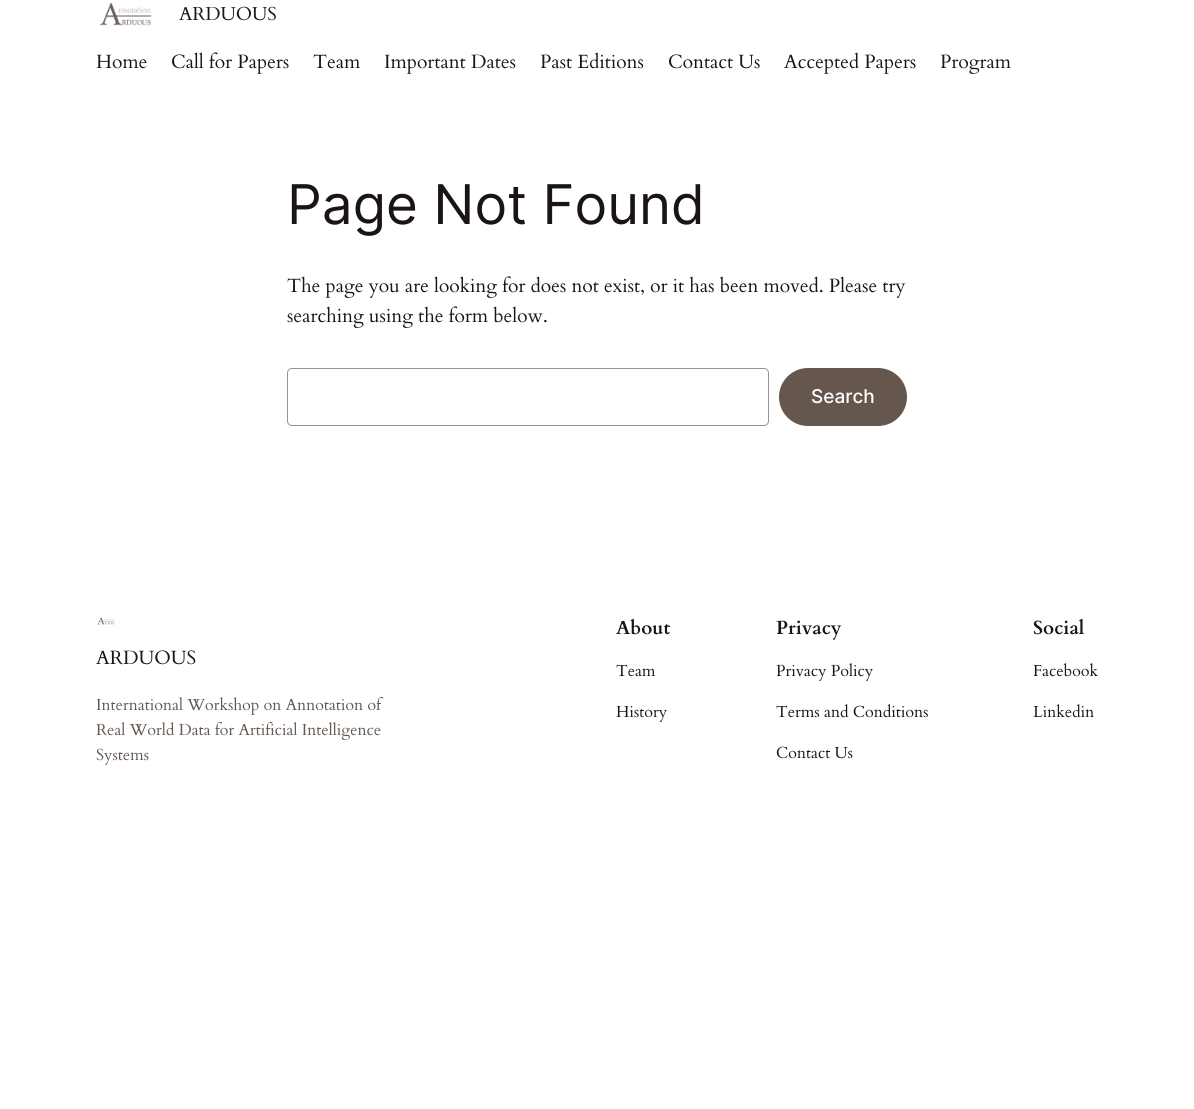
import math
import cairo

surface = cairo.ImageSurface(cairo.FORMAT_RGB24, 1194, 1109)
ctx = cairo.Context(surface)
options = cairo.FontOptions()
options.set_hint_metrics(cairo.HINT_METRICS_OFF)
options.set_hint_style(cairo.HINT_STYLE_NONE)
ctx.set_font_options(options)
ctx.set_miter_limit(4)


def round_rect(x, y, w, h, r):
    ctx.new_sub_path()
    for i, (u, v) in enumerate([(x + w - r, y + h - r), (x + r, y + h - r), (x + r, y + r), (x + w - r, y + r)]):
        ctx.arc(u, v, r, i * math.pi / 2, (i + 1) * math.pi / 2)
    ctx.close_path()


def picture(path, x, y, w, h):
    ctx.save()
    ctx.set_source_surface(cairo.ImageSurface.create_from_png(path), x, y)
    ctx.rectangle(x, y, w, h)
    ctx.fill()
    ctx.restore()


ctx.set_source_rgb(1, 1, 1)
ctx.paint()
picture("img1.png", 100, 2, 52, 24)
picture("img2.png", 179, 6, 97, 15)
picture("img3.png", 96, 54, 51, 15)
picture("img4.png", 172, 52, 117, 22)
picture("img5.png", 313, 54, 48, 15)
picture("img6.png", 384, 54, 132, 20)
picture("img7.png", 540, 52, 104, 17)
picture("img8.png", 669, 54, 91, 15)
picture("img9.png", 784, 52, 132, 22)
picture("img10.png", 940, 54, 71, 20)
ctx.select_font_face("Inter")
ctx.set_font_size(54.75)
ctx.set_source_rgb(0.102, 0.082, 0.078)
ctx.move_to(287, 224)
ctx.show_text("Page Not Found")
picture("img11.png", 287, 276, 619, 22)
picture("img12.png", 287, 306, 260, 22)
round_rect(287.5, 368.5, 481, 57, 4.5)
ctx.set_source_rgb(0.58, 0.58, 0.58)
ctx.set_line_width(1)
ctx.stroke()
ctx.set_source_rgb(0.396, 0.341, 0.306)
round_rect(779, 368, 128, 58, 29)
ctx.fill()
ctx.select_font_face("Inter Medium")
ctx.set_font_size(19)
ctx.set_source_rgb(1, 1, 1)
ctx.move_to(811, 403)
ctx.show_text("Search")
picture("img13.png", 97, 617, 18, 8)
picture("img14.png", 96, 650, 100, 15)
picture("img15.png", 96, 697, 288, 18)
picture("img16.png", 96, 722, 285, 18)
picture("img17.png", 96, 748, 53, 17)
ctx.select_font_face("Cardo", cairo.FONT_SLANT_NORMAL, cairo.FONT_WEIGHT_BOLD)
ctx.set_source_rgb(0.102, 0.082, 0.078)
ctx.move_to(616, 634)
ctx.show_text("About")
picture("img18.png", 616, 664, 40, 13)
picture("img19.png", 616, 706, 51, 16)
ctx.move_to(776, 634)
ctx.show_text("Privacy")
picture("img20.png", 776, 663, 97, 18)
picture("img21.png", 776, 704, 152, 14)
picture("img22.png", 776, 746, 77, 13)
ctx.move_to(1033, 634)
ctx.show_text("Social")
picture("img23.png", 1033, 663, 65, 14)
picture("img24.png", 1033, 704, 61, 14)
surface.write_to_png("page.png")
